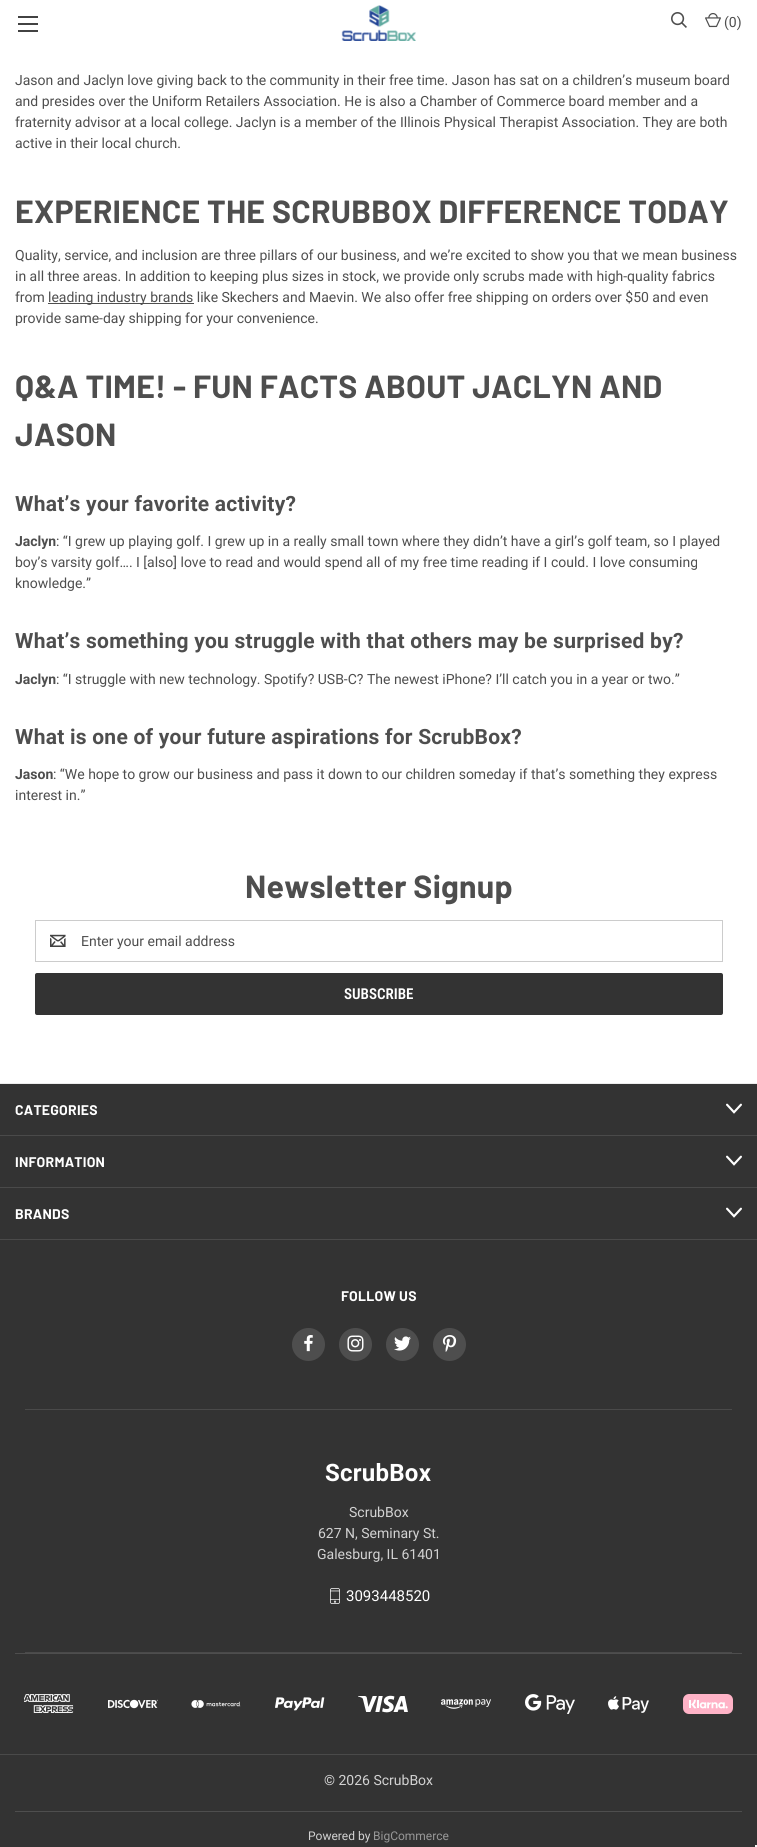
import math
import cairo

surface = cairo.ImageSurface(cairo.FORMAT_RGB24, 757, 1847)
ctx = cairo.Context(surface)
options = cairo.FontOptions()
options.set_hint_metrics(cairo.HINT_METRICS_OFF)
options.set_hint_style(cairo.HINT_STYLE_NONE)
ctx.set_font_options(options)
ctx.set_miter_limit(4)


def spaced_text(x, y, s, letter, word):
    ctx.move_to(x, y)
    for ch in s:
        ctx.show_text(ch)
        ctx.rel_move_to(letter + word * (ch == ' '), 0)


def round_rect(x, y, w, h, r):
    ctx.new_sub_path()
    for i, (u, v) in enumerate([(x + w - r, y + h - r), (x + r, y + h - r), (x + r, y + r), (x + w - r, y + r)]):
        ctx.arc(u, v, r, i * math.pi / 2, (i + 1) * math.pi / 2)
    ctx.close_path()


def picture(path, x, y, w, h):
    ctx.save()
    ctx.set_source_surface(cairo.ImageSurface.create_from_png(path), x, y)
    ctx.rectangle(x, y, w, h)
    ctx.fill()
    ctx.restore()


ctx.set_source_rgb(1, 1, 1)
ctx.paint()
ctx.set_source_rgb(0.259, 0.259, 0.259)
ctx.rectangle(18, 23, 20, 2)
ctx.fill()
ctx.rectangle(18, 16, 20, 2)
ctx.fill()
ctx.rectangle(18, 30, 20, 2)
ctx.fill()
picture("img1.png", 341, 5, 75, 36)
picture("img2.png", 671, 12, 16, 16)
picture("img3.png", 705, 13, 16, 15)
ctx.select_font_face("Roboto")
ctx.set_font_size(14)
ctx.set_source_rgb(0.306, 0.306, 0.306)
ctx.move_to(724, 27)
ctx.show_text("(0)")
ctx.move_to(15, 85)
ctx.show_text("Jason and Jaclyn love giving back to the community in their free time. Jason has sat on a children’s museum board")
ctx.move_to(15, 106)
ctx.show_text("and presides over the Uniform Retailers Association. He is also a Chamber of Commerce board member and a")
ctx.move_to(15, 127)
ctx.show_text("fraternity advisor at a local college. Jaclyn is a member of the Illinois Physical Therapist Association. They are both")
ctx.move_to(15, 148)
ctx.show_text("active in their local church.")
ctx.select_font_face("Barlow", cairo.FONT_SLANT_NORMAL, cairo.FONT_WEIGHT_BOLD)
ctx.set_font_size(32)
spaced_text(15, 223, "EXPERIENCE THE SCRUBBOX DIFFERENCE TODAY", 0.25, 0)
ctx.select_font_face("Roboto")
ctx.set_font_size(14)
ctx.move_to(15, 260)
ctx.show_text("Quality, service, and inclusion are three pillars of our business, and we’re excited to show you that we mean business")
ctx.move_to(15, 281)
ctx.show_text("in all three areas. In addition to keeping plus sizes in stock, we provide only scrubs made with high-quality fabrics")
ctx.move_to(15, 302)
ctx.show_text("from")
ctx.rectangle(48, 303, 146, 1)
ctx.fill()
ctx.move_to(48, 302)
ctx.show_text("leading industry brands like Skechers and Maevin. We also offer free shipping on orders over $50 and even")
ctx.move_to(15, 323)
ctx.show_text("provide same-day shipping for your convenience.")
ctx.select_font_face("Barlow", cairo.FONT_SLANT_NORMAL, cairo.FONT_WEIGHT_BOLD)
ctx.set_font_size(32)
spaced_text(15, 398, "Q&A TIME! - FUN FACTS ABOUT JACLYN AND", 0.25, 0)
spaced_text(15, 446, "JASON", 0.25, 0)
ctx.select_font_face("Roboto", cairo.FONT_SLANT_NORMAL, cairo.FONT_WEIGHT_BOLD)
ctx.set_font_size(21)
spaced_text(15, 511, "What’s your favorite activity?", 0.25, 0)
ctx.set_font_size(14)
ctx.move_to(15, 546)
ctx.show_text("Jaclyn")
ctx.select_font_face("Roboto")
ctx.move_to(56, 546)
ctx.show_text(": “I grew up playing golf. I grew up in a really small town where they didn’t have a girl’s golf team, so I played")
ctx.move_to(15, 567)
ctx.show_text("boy’s varsity golf…. I [also] love to read and would spend all of my free time reading if I could. I love consuming")
ctx.move_to(15, 588)
ctx.show_text("knowledge.”")
ctx.select_font_face("Roboto", cairo.FONT_SLANT_NORMAL, cairo.FONT_WEIGHT_BOLD)
ctx.set_font_size(21)
spaced_text(15, 648, "What’s something you struggle with that others may be surprised by?", 0.25, 0)
ctx.set_font_size(14)
ctx.move_to(15, 684)
ctx.show_text("Jaclyn")
ctx.select_font_face("Roboto")
ctx.move_to(56, 684)
ctx.show_text(": “I struggle with new technology. Spotify? USB-C? The newest iPhone? I’ll catch you in a year or two.”")
ctx.select_font_face("Roboto", cairo.FONT_SLANT_NORMAL, cairo.FONT_WEIGHT_BOLD)
ctx.set_font_size(21)
spaced_text(15, 744, "What is one of your future aspirations for ScrubBox?", 0.25, 0)
ctx.set_font_size(14)
ctx.move_to(15, 779)
ctx.show_text("Jason")
ctx.select_font_face("Roboto")
ctx.move_to(53, 779)
ctx.show_text(": “We hope to grow our business and pass it down to our children someday if that’s something they express")
ctx.move_to(15, 800)
ctx.show_text("interest in.”")
ctx.select_font_face("Barlow", cairo.FONT_SLANT_NORMAL, cairo.FONT_WEIGHT_BOLD)
ctx.set_font_size(32)
spaced_text(245, 898, "Newsletter Signup", 0.25, 0)
ctx.rectangle(35.5, 920.5, 687, 41)
ctx.set_source_rgb(0.8, 0.8, 0.8)
ctx.set_line_width(1)
ctx.stroke()
picture("img4.png", 50, 934, 16, 13)
ctx.select_font_face("Roboto")
ctx.set_font_size(14)
ctx.set_source_rgb(0.306, 0.306, 0.306)
ctx.move_to(81, 946)
ctx.show_text("Enter your email address")
ctx.set_source_rgb(0.2, 0.2, 0.2)
round_rect(35, 973, 688, 42, 2)
ctx.fill()
ctx.select_font_face("Roboto Condensed SemiBold")
ctx.set_font_size(15)
ctx.set_source_rgb(1, 1, 1)
ctx.move_to(344, 999)
ctx.show_text("SUBSCRIBE")
ctx.set_source_rgb(0.2, 0.2, 0.2)
ctx.rectangle(0, 1084, 757, 763)
ctx.fill()
ctx.set_source_rgb(0.922, 0.922, 0.922)
ctx.rectangle(0, 1083, 757, 1)
ctx.fill()
ctx.set_source_rgb(0.29, 0.29, 0.29)
ctx.rectangle(0, 1135, 757, 1)
ctx.fill()
ctx.select_font_face("Barlow", cairo.FONT_SLANT_NORMAL, cairo.FONT_WEIGHT_BOLD)
ctx.set_font_size(14)
ctx.set_source_rgb(1, 1, 1)
spaced_text(15, 1115, "CATEGORIES", 0.25, 0)
picture("img5.png", 726, 1103, 16, 11)
ctx.set_source_rgb(0.29, 0.29, 0.29)
ctx.rectangle(0, 1187, 757, 1)
ctx.fill()
ctx.set_source_rgb(1, 1, 1)
spaced_text(15, 1167, "INFORMATION", 0.25, 0)
picture("img5.png", 726, 1155, 16, 11)
ctx.set_source_rgb(0.29, 0.29, 0.29)
ctx.rectangle(0, 1239, 757, 1)
ctx.fill()
ctx.set_source_rgb(1, 1, 1)
spaced_text(15, 1219, "BRANDS", 0.25, 0)
picture("img5.png", 726, 1207, 16, 11)
ctx.set_source_rgb(0.29, 0.29, 0.29)
ctx.rectangle(25, 1409, 707, 1)
ctx.fill()
ctx.set_source_rgb(1, 1, 1)
spaced_text(341, 1301, "FOLLOW US", 0.25, 0)
ctx.set_source_rgb(0.306, 0.306, 0.306)
ctx.new_path()
ctx.arc(308.5, 1344.5, 16.5, 0, 2 * math.pi)
ctx.fill()
picture("img6.png", 304, 1335, 9, 17)
ctx.arc(355.5, 1344.5, 16.5, 0, 2 * math.pi)
ctx.fill()
picture("img7.png", 347, 1335, 17, 17)
ctx.arc(402.5, 1344.5, 16.5, 0, 2 * math.pi)
ctx.fill()
picture("img8.png", 394, 1336, 17, 15)
ctx.arc(449.5, 1344.5, 16.5, 0, 2 * math.pi)
ctx.fill()
picture("img9.png", 442, 1335, 15, 17)
ctx.set_source_rgb(0.29, 0.29, 0.29)
ctx.rectangle(25, 1652, 707, 1)
ctx.fill()
ctx.select_font_face("Roboto", cairo.FONT_SLANT_NORMAL, cairo.FONT_WEIGHT_BOLD)
ctx.set_font_size(24)
ctx.set_source_rgb(1, 1, 1)
spaced_text(325, 1481, "ScrubBox", 0.25, 0)
ctx.select_font_face("Roboto")
ctx.set_font_size(14)
ctx.set_source_rgb(0.824, 0.824, 0.824)
ctx.move_to(349, 1517)
ctx.show_text("ScrubBox")
ctx.move_to(318, 1538)
ctx.show_text("627 N, Seminary St.")
ctx.move_to(317, 1559)
ctx.show_text("Galesburg, IL 61401")
picture("img10.png", 330, 1588, 10, 16)
ctx.set_font_size(15)
ctx.set_source_rgb(1, 1, 1)
ctx.move_to(346, 1601)
ctx.show_text("3093448520")
ctx.set_source_rgb(0.306, 0.306, 0.306)
ctx.rectangle(15, 1653, 727, 1)
ctx.fill()
ctx.set_source_rgb(0.29, 0.29, 0.29)
ctx.rectangle(0, 1754, 757, 1)
ctx.fill()
picture("img11.png", 24, 1694, 50, 19)
picture("img12.png", 108, 1699, 50, 10)
picture("img13.png", 191, 1700, 50, 8)
picture("img14.png", 275, 1697, 50, 14)
picture("img15.png", 358, 1695, 50, 18)
picture("img16.png", 441, 1699, 50, 10)
picture("img17.png", 525, 1694, 50, 20)
picture("img18.png", 608, 1696, 41, 17)
picture("img19.png", 683, 1694, 50, 20)
ctx.set_font_size(14)
ctx.set_source_rgb(0.824, 0.824, 0.824)
ctx.move_to(324, 1785)
ctx.show_text("© 2026 ScrubBox")
ctx.set_source_rgb(0.306, 0.306, 0.306)
ctx.rectangle(15, 1811, 727, 1)
ctx.fill()
ctx.set_font_size(12)
ctx.set_source_rgb(0.824, 0.824, 0.824)
ctx.move_to(308, 1840)
ctx.show_text("Powered by")
ctx.set_source_rgb(0.596, 0.596, 0.596)
ctx.move_to(373, 1840)
ctx.show_text("BigCommerce")
ctx.set_source_rgb(0.961, 0.961, 0.961)
ctx.rectangle(755, 1845, 2, 2)
ctx.fill()
surface.write_to_png("page.png")
